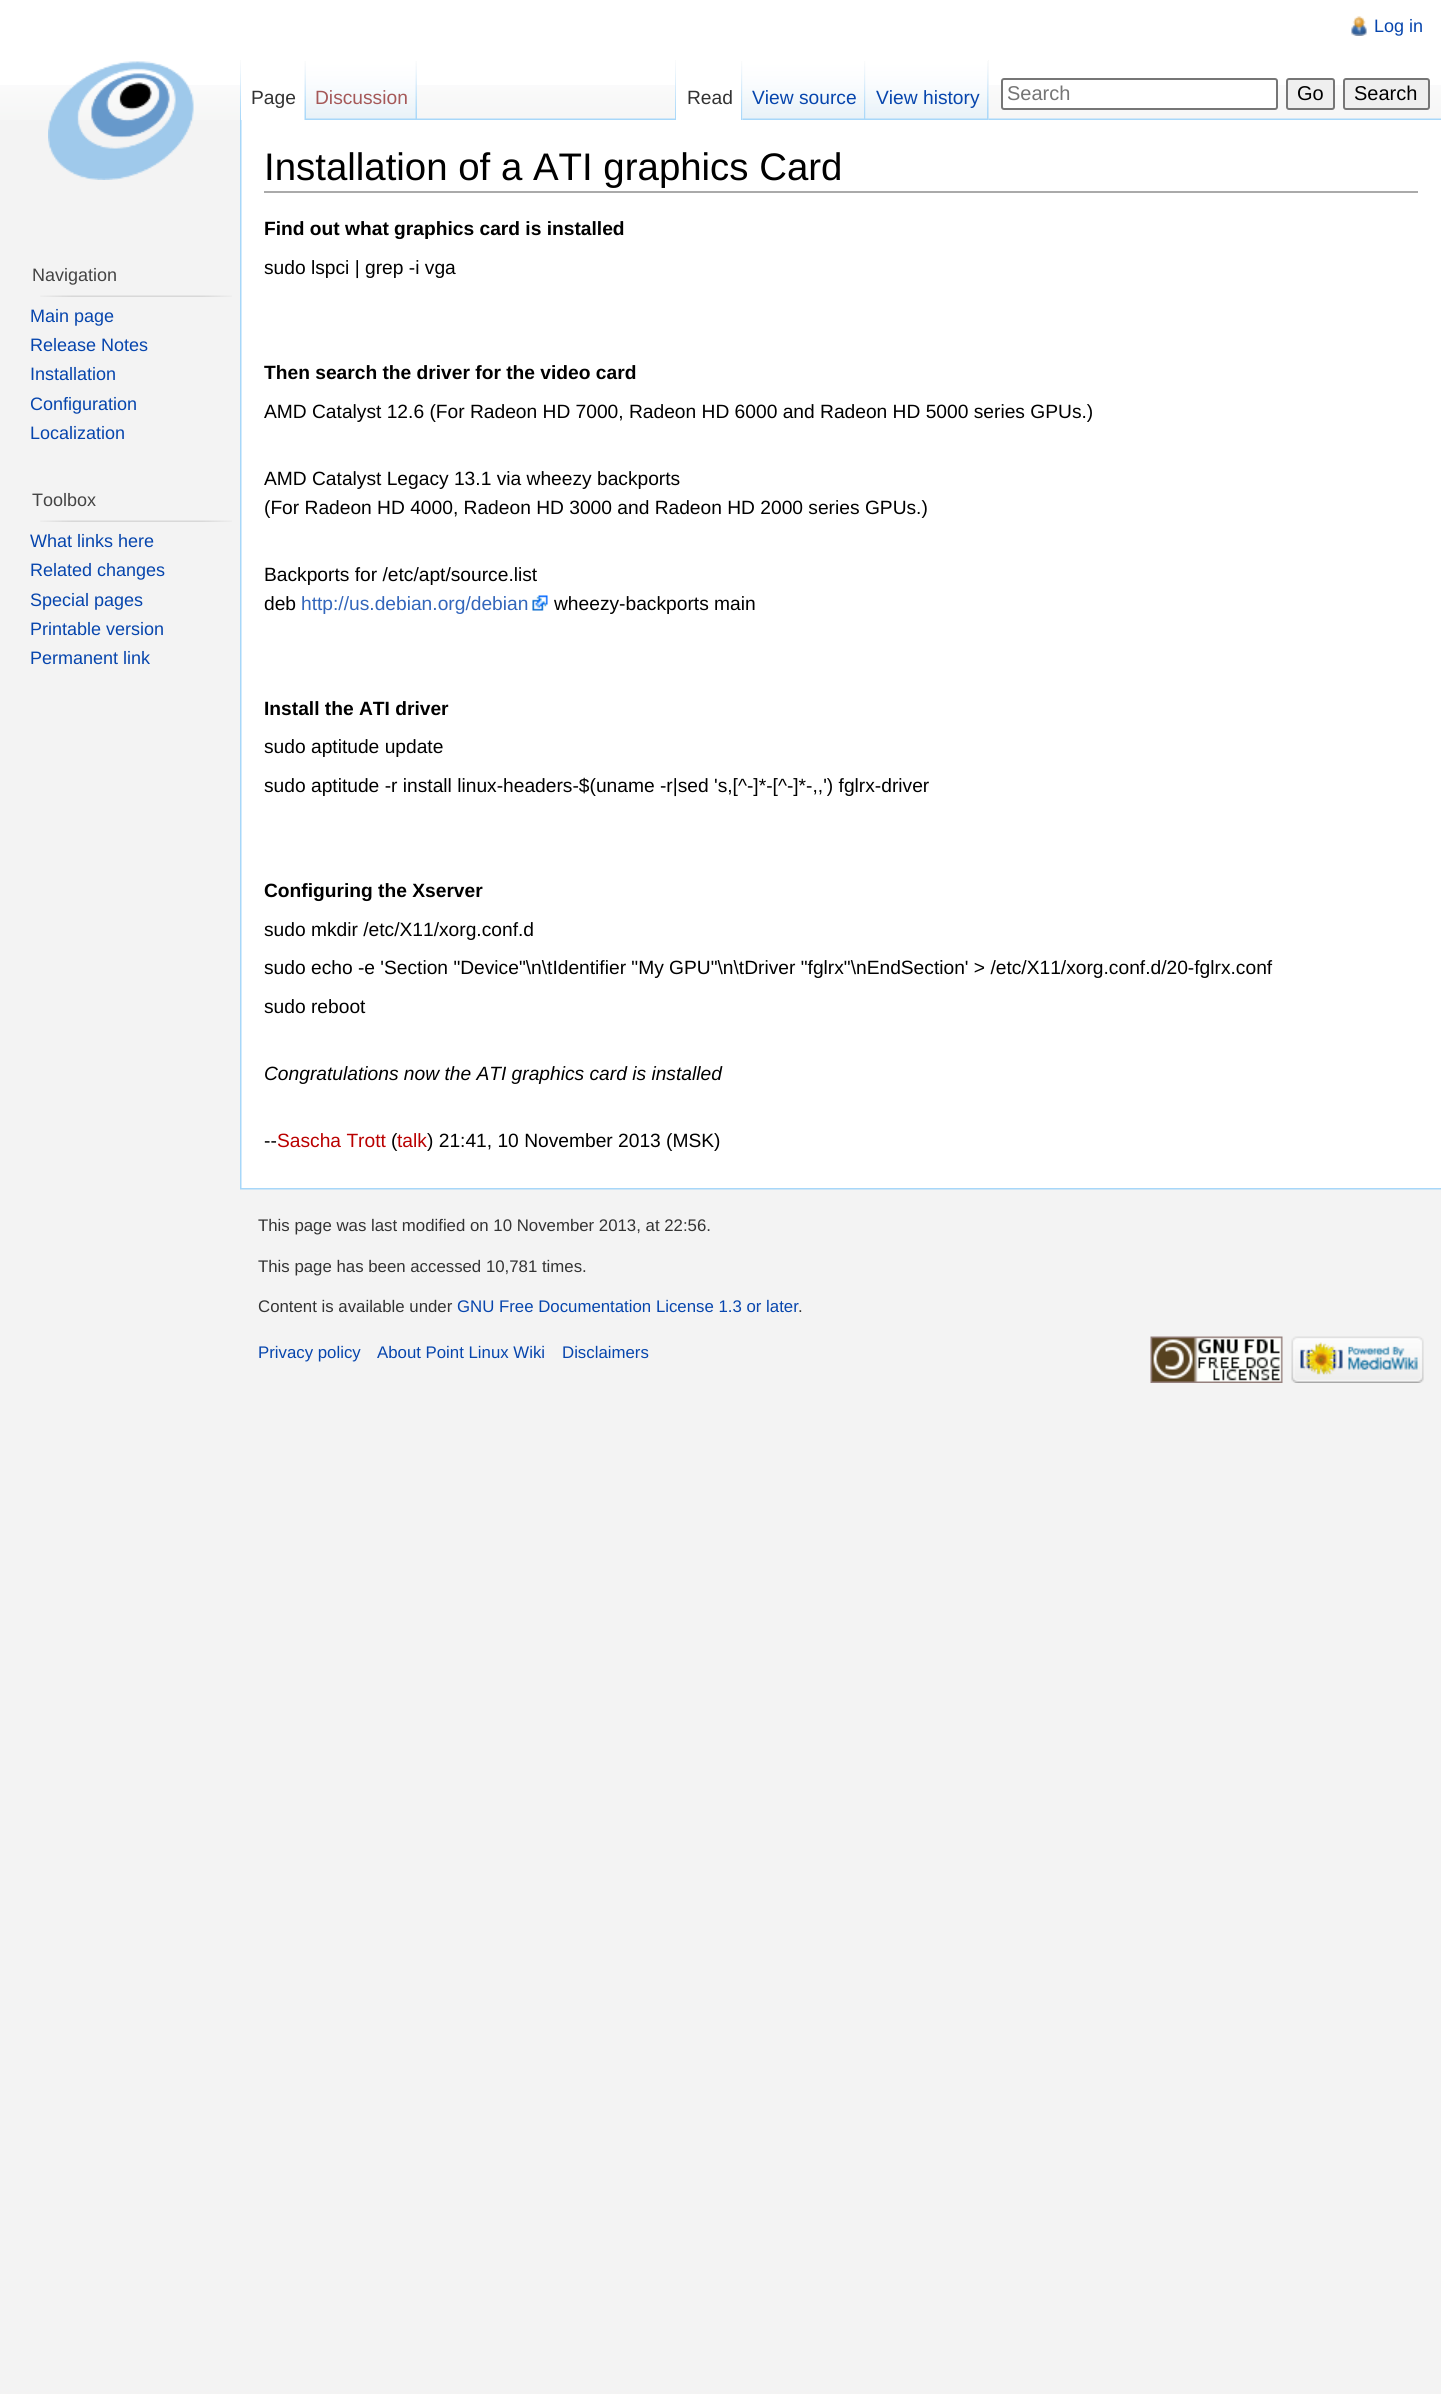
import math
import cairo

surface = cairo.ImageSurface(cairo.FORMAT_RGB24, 1441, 2394)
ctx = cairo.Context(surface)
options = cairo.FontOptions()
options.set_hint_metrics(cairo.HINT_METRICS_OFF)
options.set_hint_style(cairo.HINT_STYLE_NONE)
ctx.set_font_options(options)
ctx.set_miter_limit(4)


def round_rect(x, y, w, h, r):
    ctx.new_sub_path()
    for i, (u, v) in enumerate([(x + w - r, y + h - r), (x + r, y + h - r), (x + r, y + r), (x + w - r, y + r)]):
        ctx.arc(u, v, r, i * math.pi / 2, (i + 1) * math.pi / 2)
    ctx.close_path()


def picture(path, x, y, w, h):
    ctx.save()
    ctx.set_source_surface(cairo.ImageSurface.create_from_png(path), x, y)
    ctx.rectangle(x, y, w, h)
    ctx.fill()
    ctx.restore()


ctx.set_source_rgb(0.953, 0.953, 0.953)
ctx.paint()
ctx.set_source_rgb(1, 1, 1)
ctx.rectangle(0, 0, 1441, 85)
ctx.fill()
picture("img1.png", 0, 85, 1441, 35)
picture("img2.png", 1351, 16, 16, 20)
ctx.select_font_face("Liberation Sans")
ctx.set_font_size(18)
ctx.set_source_rgb(0.024, 0.271, 0.678)
ctx.move_to(1374, 32)
ctx.show_text("Log in")
picture("img11.png", 240, 118, 1201, 2)
picture("img3.png", 240, 60, 1, 59)
ctx.set_source_rgb(1, 1, 1)
ctx.rectangle(241, 85, 65, 35)
ctx.fill()
picture("img4.png", 304, 61, 2, 59)
ctx.set_font_size(19.2)
ctx.set_source_rgb(0.2, 0.2, 0.2)
ctx.move_to(251, 104)
ctx.show_text("Page")
picture("img5.png", 306, 60, 111, 60)
picture("img6.png", 415, 61, 2, 58)
ctx.set_source_rgb(0.647, 0.345, 0.345)
ctx.move_to(315, 104)
ctx.show_text("Discussion")
picture("img3.png", 675, 60, 1, 59)
ctx.set_source_rgb(1, 1, 1)
ctx.rectangle(676, 85, 67, 35)
ctx.fill()
picture("img7.png", 741, 61, 2, 59)
ctx.set_source_rgb(0.2, 0.2, 0.2)
ctx.move_to(687, 104)
ctx.show_text("Read")
picture("img8.png", 742, 60, 124, 60)
picture("img9.png", 864, 61, 2, 59)
ctx.set_source_rgb(0.024, 0.271, 0.678)
ctx.move_to(752, 104)
ctx.show_text("View source")
ctx.set_source_rgb(0.953, 0.953, 0.953)
ctx.rectangle(988, 60, 1, 60)
ctx.fill()
picture("img10.png", 865, 60, 124, 60)
picture("img9.png", 987, 61, 2, 59)
ctx.set_source_rgb(0.024, 0.271, 0.678)
ctx.move_to(876, 104)
ctx.show_text("View history")
ctx.set_source_rgb(1, 1, 1)
round_rect(1002, 79, 275, 30, 2)
ctx.fill_preserve()
ctx.set_source_rgb(0.463, 0.463, 0.463)
ctx.stroke()
ctx.set_font_size(20)
ctx.set_source_rgb(0.459, 0.459, 0.459)
ctx.move_to(1007, 100)
ctx.show_text("Search")
ctx.set_source_rgb(0.937, 0.937, 0.937)
round_rect(1287, 79, 47, 30, 2)
ctx.fill_preserve()
ctx.set_source_rgb(0.463, 0.463, 0.463)
ctx.stroke()
ctx.set_source_rgb(0, 0, 0)
ctx.move_to(1297, 100)
ctx.show_text("Go")
ctx.set_source_rgb(0.937, 0.937, 0.937)
round_rect(1344, 79, 85, 30, 2)
ctx.fill_preserve()
ctx.set_source_rgb(0.463, 0.463, 0.463)
ctx.stroke()
ctx.set_source_rgb(0, 0, 0)
ctx.move_to(1354, 100)
ctx.show_text("Search")
picture("img12.png", 48, 61, 146, 119)
ctx.set_font_size(18)
ctx.set_source_rgb(0.267, 0.267, 0.267)
ctx.move_to(32, 281)
ctx.show_text("Navigation")
picture("img13.png", 40, 295, 192, 2)
ctx.set_source_rgb(0.024, 0.271, 0.678)
ctx.move_to(30, 322)
ctx.show_text("Main page")
ctx.move_to(30, 351)
ctx.show_text("Release Notes")
ctx.move_to(30, 380)
ctx.show_text("Installation")
ctx.move_to(30, 410)
ctx.show_text("Configuration")
ctx.move_to(30, 439)
ctx.show_text("Localization")
ctx.set_source_rgb(0.267, 0.267, 0.267)
ctx.move_to(32, 506)
ctx.show_text("Toolbox")
picture("img13.png", 40, 520, 192, 2)
ctx.set_source_rgb(0.024, 0.271, 0.678)
ctx.move_to(30, 547)
ctx.show_text("What links here")
ctx.move_to(30, 576)
ctx.show_text("Related changes")
ctx.move_to(30, 606)
ctx.show_text("Special pages")
ctx.move_to(30, 635)
ctx.show_text("Printable version")
ctx.move_to(30, 664)
ctx.show_text("Permanent link")
ctx.set_source_rgb(1, 1, 1)
ctx.rectangle(241, 120, 1200, 1068)
ctx.fill()
picture("img14.png", 240, 120, 2, 1068)
ctx.set_source_rgb(0.667, 0.667, 0.667)
ctx.rectangle(264, 191, 1154, 2)
ctx.fill()
ctx.set_font_size(38.4)
ctx.set_source_rgb(0, 0, 0)
ctx.move_to(264, 180)
ctx.show_text("Installation of a ATI graphics Card")
ctx.select_font_face("Liberation Sans", cairo.FONT_SLANT_NORMAL, cairo.FONT_WEIGHT_BOLD)
ctx.set_font_size(19.2)
ctx.move_to(264, 235)
ctx.show_text("Find out what graphics card is installed")
ctx.select_font_face("Liberation Sans")
ctx.move_to(264, 274)
ctx.show_text("sudo lspci | grep -i vga")
ctx.select_font_face("Liberation Sans", cairo.FONT_SLANT_NORMAL, cairo.FONT_WEIGHT_BOLD)
ctx.move_to(264, 379)
ctx.show_text("Then search the driver for the video card")
ctx.select_font_face("Liberation Sans")
ctx.move_to(264, 418)
ctx.show_text("AMD Catalyst 12.6 (For Radeon HD 7000, Radeon HD 6000 and Radeon HD 5000 series GPUs.)")
ctx.move_to(264, 485)
ctx.show_text("AMD Catalyst Legacy 13.1 via wheezy backports")
ctx.move_to(264, 514)
ctx.show_text("(For Radeon HD 4000, Radeon HD 3000 and Radeon HD 2000 series GPUs.)")
ctx.move_to(264, 581)
ctx.show_text("Backports for /etc/apt/source.list")
ctx.move_to(264, 610)
ctx.show_text("deb")
ctx.set_source_rgb(0.2, 0.4, 0.733)
ctx.move_to(301, 610)
ctx.show_text("http://us.debian.org/debian")
picture("img15.png", 532, 595, 16, 16)
ctx.set_source_rgb(0, 0, 0)
ctx.move_to(554, 610)
ctx.show_text("wheezy-backports main")
ctx.select_font_face("Liberation Sans", cairo.FONT_SLANT_NORMAL, cairo.FONT_WEIGHT_BOLD)
ctx.move_to(264, 715)
ctx.show_text("Install the ATI driver")
ctx.select_font_face("Liberation Sans")
ctx.move_to(264, 753)
ctx.show_text("sudo aptitude update")
ctx.move_to(264, 792)
ctx.show_text("sudo aptitude -r install linux-headers-$(uname -r|sed 's,[^-]*-[^-]*-,,') fglrx-driver")
ctx.select_font_face("Liberation Sans", cairo.FONT_SLANT_NORMAL, cairo.FONT_WEIGHT_BOLD)
ctx.move_to(264, 897)
ctx.show_text("Configuring the Xserver")
ctx.select_font_face("Liberation Sans")
ctx.move_to(264, 936)
ctx.show_text("sudo mkdir /etc/X11/xorg.conf.d")
ctx.move_to(264, 974)
ctx.show_text("sudo echo -e 'Section \"Device\"\\n\\tIdentifier \"My GPU\"\\n\\tDriver \"fglrx\"\\nEndSection' > /etc/X11/xorg.conf.d/20-fglrx.conf")
ctx.move_to(264, 1013)
ctx.show_text("sudo reboot")
ctx.select_font_face("Liberation Sans", cairo.FONT_SLANT_ITALIC)
ctx.move_to(264, 1080)
ctx.show_text("Congratulations now the ATI graphics card is installed")
ctx.select_font_face("Liberation Sans")
ctx.move_to(264, 1147)
ctx.show_text("--")
ctx.set_source_rgb(0.729, 0, 0)
ctx.move_to(277, 1147)
ctx.show_text("Sascha Trott")
ctx.set_source_rgb(0, 0, 0)
ctx.move_to(391, 1147)
ctx.show_text("(")
ctx.set_source_rgb(0.729, 0, 0)
ctx.move_to(397, 1147)
ctx.show_text("talk")
ctx.set_source_rgb(0, 0, 0)
ctx.move_to(427, 1147)
ctx.show_text(") 21:41, 10 November 2013 (MSK)")
picture("img16.png", 240, 1188, 1201, 2)
ctx.set_font_size(16.8)
ctx.set_source_rgb(0.2, 0.2, 0.2)
ctx.move_to(258, 1231)
ctx.show_text("This page was last modified on 10 November 2013, at 22:56.")
ctx.move_to(258, 1272)
ctx.show_text("This page has been accessed 10,781 times.")
ctx.move_to(258, 1312)
ctx.show_text("Content is available under")
ctx.set_source_rgb(0.024, 0.271, 0.678)
ctx.move_to(457, 1312)
ctx.show_text("GNU Free Documentation License 1.3 or later")
ctx.set_source_rgb(0.2, 0.2, 0.2)
ctx.move_to(798, 1312)
ctx.show_text(".")
ctx.set_source_rgb(0.024, 0.271, 0.678)
ctx.move_to(258, 1358)
ctx.show_text("Privacy policy")
ctx.move_to(377, 1358)
ctx.show_text("About Point Linux Wiki")
ctx.move_to(562, 1358)
ctx.show_text("Disclaimers")
picture("img17.png", 1150, 1336, 133, 47)
picture("img18.png", 1291, 1336, 133, 47)
surface.write_to_png("page.png")
